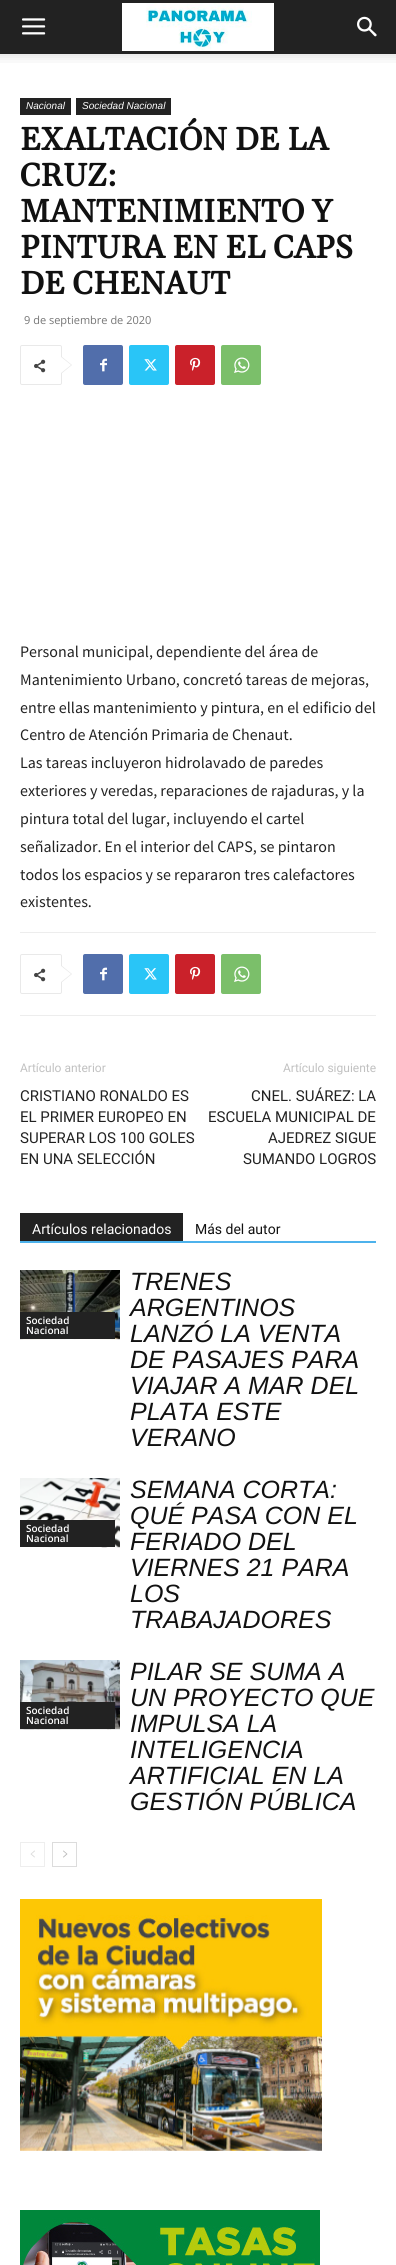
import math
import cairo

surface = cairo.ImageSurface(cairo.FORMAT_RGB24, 396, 2265)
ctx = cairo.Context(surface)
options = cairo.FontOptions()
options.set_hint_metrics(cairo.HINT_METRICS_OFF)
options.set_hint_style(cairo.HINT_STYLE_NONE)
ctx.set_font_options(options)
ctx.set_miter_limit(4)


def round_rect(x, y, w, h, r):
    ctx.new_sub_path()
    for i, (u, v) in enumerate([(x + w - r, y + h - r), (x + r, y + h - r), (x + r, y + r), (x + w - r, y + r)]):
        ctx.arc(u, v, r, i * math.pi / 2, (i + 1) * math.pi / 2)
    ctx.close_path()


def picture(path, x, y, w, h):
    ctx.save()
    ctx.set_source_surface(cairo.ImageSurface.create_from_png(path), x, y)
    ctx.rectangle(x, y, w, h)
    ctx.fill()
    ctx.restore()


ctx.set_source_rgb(1, 1, 1)
ctx.paint()
ctx.set_source_rgb(0.133, 0.133, 0.133)
ctx.rectangle(0, 0, 396, 54)
ctx.fill()
picture("img1.png", 22, 18, 24, 17)
picture("img2.png", 122, 3, 152, 48)
picture("img3.png", 357, 16, 20, 21)
picture("img4.png", 0, 54, 396, 9)
ctx.rectangle(20, 98, 51, 17)
ctx.fill()
ctx.select_font_face("Liberation Sans", cairo.FONT_SLANT_ITALIC)
ctx.set_font_size(10)
ctx.set_source_rgb(1, 1, 1)
ctx.move_to(26, 109)
ctx.show_text("Nacional")
ctx.set_source_rgb(0.133, 0.133, 0.133)
ctx.rectangle(76, 98, 95, 17)
ctx.fill()
ctx.set_source_rgb(1, 1, 1)
ctx.move_to(82, 109)
ctx.show_text("Sociedad Nacional")
ctx.select_font_face("Gelasio", cairo.FONT_SLANT_NORMAL, cairo.FONT_WEIGHT_BOLD)
ctx.set_font_size(32)
ctx.set_source_rgb(0.067, 0.067, 0.067)
ctx.move_to(20, 150)
ctx.show_text("EXALTACIÓN DE LA")
ctx.move_to(20, 186)
ctx.show_text("CRUZ:")
ctx.move_to(20, 222)
ctx.show_text("MANTENIMIENTO Y")
ctx.move_to(20, 258)
ctx.show_text("PINTURA EN EL CAPS")
ctx.move_to(20, 294)
ctx.show_text("DE CHENAUT")
ctx.select_font_face("Open Sans")
ctx.set_font_size(11)
ctx.set_source_rgb(0.463, 0.463, 0.463)
ctx.move_to(24, 324)
ctx.show_text("9 de septiembre de 2020")
round_rect(20.5, 345.5, 41, 39, 1.5)
ctx.set_source_rgb(0.914, 0.914, 0.914)
ctx.set_line_width(1)
ctx.stroke()
ctx.new_path()
ctx.move_to(61, 374)
ctx.line_to(61, 356)
ctx.line_to(72, 365)
ctx.close_path()
ctx.fill()
picture("img5.png", 34, 359, 12, 14)
ctx.set_source_rgb(1, 1, 1)
ctx.new_path()
ctx.move_to(61, 373)
ctx.line_to(61, 357)
ctx.line_to(71, 365)
ctx.close_path()
ctx.fill()
ctx.set_source_rgb(0.318, 0.431, 0.671)
round_rect(83, 345, 40, 40, 2)
ctx.fill()
picture("img6.png", 100, 358, 7, 14)
ctx.set_source_rgb(0.161, 0.773, 0.965)
round_rect(129, 345, 40, 40, 2)
ctx.fill()
picture("img7.png", 144, 359, 13, 12)
ctx.set_source_rgb(0.792, 0.129, 0.165)
round_rect(175, 345, 40, 40, 2)
ctx.fill()
picture("img8.png", 190, 357, 11, 14)
ctx.set_source_rgb(0.482, 0.749, 0.416)
round_rect(221, 345, 40, 40, 2)
ctx.fill()
picture("img9.png", 234, 357, 16, 16)
ctx.select_font_face("Source Sans Pro")
ctx.set_font_size(16)
ctx.set_source_rgb(0.133, 0.133, 0.133)
ctx.move_to(20, 657)
ctx.show_text("Personal municipal, dependiente del área de")
ctx.move_to(20, 685)
ctx.show_text("Mantenimiento Urbano, concretó tareas de mejoras,")
ctx.move_to(20, 713)
ctx.show_text("entre ellas mantenimiento y pintura, en el edificio del")
ctx.move_to(20, 740)
ctx.show_text("Centro de Atención Primaria de Chenaut.")
ctx.move_to(20, 768)
ctx.show_text("Las tareas incluyeron hidrolavado de paredes")
ctx.move_to(20, 796)
ctx.show_text("exteriores y veredas, reparaciones de rajaduras, y la")
ctx.move_to(20, 824)
ctx.show_text("pintura total del lugar, incluyendo el cartel")
ctx.move_to(20, 852)
ctx.show_text("señalizador. En el interior del CAPS, se pintaron")
ctx.move_to(20, 880)
ctx.show_text("todos los espacios y se repararon tres calefactores")
ctx.move_to(20, 907)
ctx.show_text("existentes.")
ctx.set_source_rgb(0.929, 0.929, 0.929)
ctx.rectangle(20, 932, 356, 1)
ctx.fill()
ctx.rectangle(20, 1015, 356, 1)
ctx.fill()
round_rect(20.5, 954.5, 41, 39, 1.5)
ctx.set_source_rgb(0.914, 0.914, 0.914)
ctx.stroke()
ctx.new_path()
ctx.move_to(61, 983)
ctx.line_to(61, 965)
ctx.line_to(72, 974)
ctx.close_path()
ctx.fill()
picture("img5.png", 34, 968, 12, 14)
ctx.set_source_rgb(1, 1, 1)
ctx.new_path()
ctx.move_to(61, 982)
ctx.line_to(61, 966)
ctx.line_to(71, 974)
ctx.close_path()
ctx.fill()
ctx.set_source_rgb(0.318, 0.431, 0.671)
round_rect(83, 954, 40, 40, 2)
ctx.fill()
picture("img6.png", 100, 967, 7, 14)
ctx.set_source_rgb(0.161, 0.773, 0.965)
round_rect(129, 954, 40, 40, 2)
ctx.fill()
picture("img7.png", 144, 968, 13, 12)
ctx.set_source_rgb(0.792, 0.129, 0.165)
round_rect(175, 954, 40, 40, 2)
ctx.fill()
picture("img8.png", 190, 966, 11, 14)
ctx.set_source_rgb(0.482, 0.749, 0.416)
round_rect(221, 954, 40, 40, 2)
ctx.fill()
picture("img9.png", 234, 966, 16, 16)
ctx.select_font_face("Roboto")
ctx.set_font_size(12)
ctx.set_source_rgb(0.757, 0.757, 0.757)
ctx.move_to(20, 1072)
ctx.show_text("Artículo anterior")
ctx.set_font_size(15)
ctx.set_source_rgb(0.133, 0.133, 0.133)
ctx.move_to(20, 1101)
ctx.show_text("CRISTIANO RONALDO ES")
ctx.move_to(20, 1122)
ctx.show_text("EL PRIMER EUROPEO EN")
ctx.move_to(20, 1143)
ctx.show_text("SUPERAR LOS 100 GOLES")
ctx.move_to(20, 1164)
ctx.show_text("EN UNA SELECCIÓN")
ctx.set_font_size(12)
ctx.set_source_rgb(0.757, 0.757, 0.757)
ctx.move_to(283, 1072)
ctx.show_text("Artículo siguiente")
ctx.set_font_size(15)
ctx.set_source_rgb(0.133, 0.133, 0.133)
ctx.move_to(251, 1101)
ctx.show_text("CNEL. SUÁREZ: LA")
ctx.move_to(208, 1122)
ctx.show_text("ESCUELA MUNICIPAL DE")
ctx.move_to(268, 1143)
ctx.show_text("AJEDREZ SIGUE")
ctx.move_to(243, 1164)
ctx.show_text("SUMANDO LOGROS")
ctx.set_source_rgb(0.302, 0.698, 0.925)
ctx.rectangle(20, 1241, 356, 2)
ctx.fill()
ctx.set_source_rgb(0.133, 0.133, 0.133)
ctx.rectangle(20, 1213, 163, 28)
ctx.fill()
ctx.set_font_size(14)
ctx.set_source_rgb(1, 1, 1)
ctx.move_to(32, 1234)
ctx.show_text("Artículos relacionados")
ctx.set_source_rgb(0.067, 0.067, 0.067)
ctx.move_to(195, 1234)
ctx.show_text("Más del autor")
picture("img10.png", 20, 1270, 100, 70)
ctx.set_source_rgb(0.133, 0.133, 0.133)
ctx.rectangle(20, 1312, 95, 27)
ctx.fill()
ctx.select_font_face("Open Sans SemiBold")
ctx.set_font_size(10)
ctx.set_source_rgb(1, 1, 1)
ctx.move_to(26, 1324)
ctx.show_text("Sociedad")
ctx.move_to(26, 1334)
ctx.show_text("Nacional")
ctx.select_font_face("Liberation Sans", cairo.FONT_SLANT_ITALIC)
ctx.set_font_size(25)
ctx.set_source_rgb(0.067, 0.067, 0.067)
ctx.move_to(130, 1290)
ctx.show_text("TRENES")
ctx.move_to(130, 1316)
ctx.show_text("ARGENTINOS")
ctx.move_to(130, 1342)
ctx.show_text("LANZÓ LA VENTA")
ctx.move_to(130, 1368)
ctx.show_text("DE PASAJES PARA")
ctx.move_to(130, 1394)
ctx.show_text("VIAJAR A MAR DEL")
ctx.move_to(130, 1420)
ctx.show_text("PLATA ESTE")
ctx.move_to(130, 1446)
ctx.show_text("VERANO")
picture("img11.png", 20, 1478, 100, 70)
ctx.set_source_rgb(0.133, 0.133, 0.133)
ctx.rectangle(20, 1520, 95, 27)
ctx.fill()
ctx.select_font_face("Open Sans SemiBold")
ctx.set_font_size(10)
ctx.set_source_rgb(1, 1, 1)
ctx.move_to(26, 1532)
ctx.show_text("Sociedad")
ctx.move_to(26, 1542)
ctx.show_text("Nacional")
ctx.select_font_face("Liberation Sans", cairo.FONT_SLANT_ITALIC)
ctx.set_font_size(25)
ctx.set_source_rgb(0.067, 0.067, 0.067)
ctx.move_to(130, 1498)
ctx.show_text("SEMANA CORTA:")
ctx.move_to(130, 1524)
ctx.show_text("QUÉ PASA CON EL")
ctx.move_to(130, 1550)
ctx.show_text("FERIADO DEL")
ctx.move_to(130, 1576)
ctx.show_text("VIERNES 21 PARA")
ctx.move_to(130, 1602)
ctx.show_text("LOS")
ctx.move_to(130, 1628)
ctx.show_text("TRABAJADORES")
picture("img12.png", 20, 1660, 100, 70)
ctx.set_source_rgb(0.133, 0.133, 0.133)
ctx.rectangle(20, 1702, 95, 27)
ctx.fill()
ctx.select_font_face("Open Sans SemiBold")
ctx.set_font_size(10)
ctx.set_source_rgb(1, 1, 1)
ctx.move_to(26, 1714)
ctx.show_text("Sociedad")
ctx.move_to(26, 1724)
ctx.show_text("Nacional")
ctx.select_font_face("Liberation Sans", cairo.FONT_SLANT_ITALIC)
ctx.set_font_size(25)
ctx.set_source_rgb(0.067, 0.067, 0.067)
ctx.move_to(130, 1680)
ctx.show_text("PILAR SE SUMA A")
ctx.move_to(130, 1706)
ctx.show_text("UN PROYECTO QUE")
ctx.move_to(130, 1732)
ctx.show_text("IMPULSA LA")
ctx.move_to(130, 1758)
ctx.show_text("INTELIGENCIA")
ctx.move_to(130, 1784)
ctx.show_text("ARTIFICIAL EN LA")
ctx.move_to(130, 1810)
ctx.show_text("GESTIÓN PÚBLICA")
ctx.rectangle(20.5, 1842.5, 24, 24)
ctx.set_source_rgb(0.933, 0.933, 0.933)
ctx.stroke()
picture("img13.png", 30, 1850, 5, 8)
ctx.rectangle(52.5, 1842.5, 24, 24)
ctx.set_source_rgb(0.863, 0.863, 0.863)
ctx.stroke()
picture("img14.png", 63, 1850, 5, 8)
picture("img15.png", 20, 1899, 302, 252)
picture("img16.png", 20, 2210, 300, 55)
surface.write_to_png("page.png")
